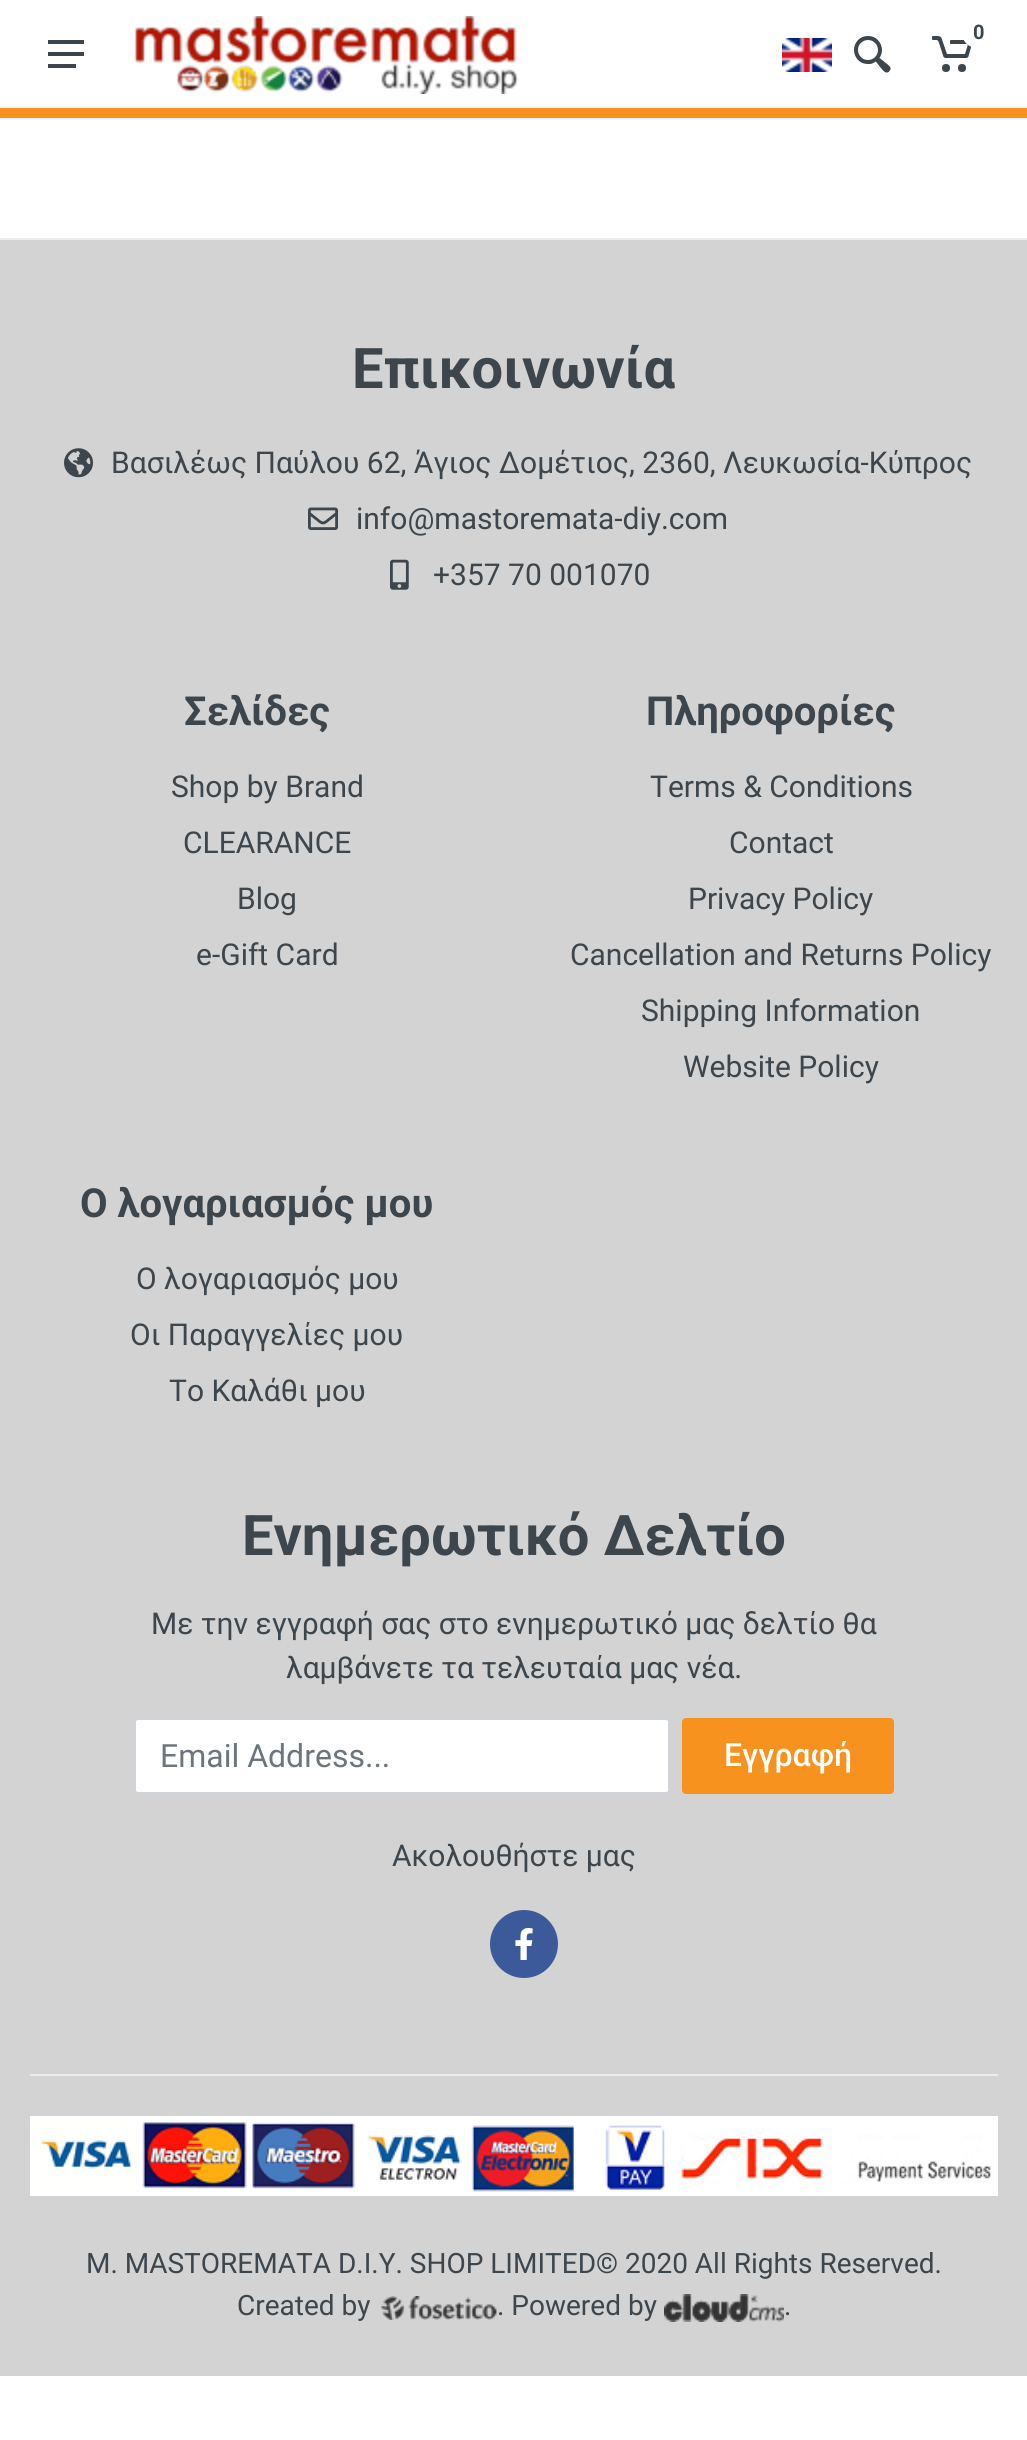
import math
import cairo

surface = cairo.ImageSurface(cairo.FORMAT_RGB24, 1027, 2440)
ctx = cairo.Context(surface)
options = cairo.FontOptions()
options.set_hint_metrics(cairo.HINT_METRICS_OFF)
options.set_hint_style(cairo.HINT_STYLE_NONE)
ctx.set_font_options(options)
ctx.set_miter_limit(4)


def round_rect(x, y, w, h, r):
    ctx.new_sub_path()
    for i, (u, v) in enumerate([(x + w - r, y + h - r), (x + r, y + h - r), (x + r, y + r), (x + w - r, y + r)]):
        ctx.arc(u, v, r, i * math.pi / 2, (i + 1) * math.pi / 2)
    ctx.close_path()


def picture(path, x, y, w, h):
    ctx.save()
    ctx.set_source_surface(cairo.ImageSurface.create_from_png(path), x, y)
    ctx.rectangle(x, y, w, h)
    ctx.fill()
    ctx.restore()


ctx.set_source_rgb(1, 1, 1)
ctx.paint()
ctx.set_source_rgb(0.961, 0.961, 0.961)
ctx.rectangle(0, 118, 1027, 2)
ctx.fill()
ctx.rectangle(0, 106, 1027, 2)
ctx.fill()
ctx.set_source_rgb(0.969, 0.573, 0.118)
ctx.rectangle(0, 108, 1027, 10)
ctx.fill()
picture("img1.png", 134, 16, 385, 78)
picture("img2.png", 932, 36, 40, 36)
ctx.set_source_rgb(1, 1, 1)
round_rect(962, 18, 32, 30, 15)
ctx.fill()
ctx.select_font_face("Roboto", cairo.FONT_SLANT_NORMAL, cairo.FONT_WEIGHT_BOLD)
ctx.set_font_size(20)
ctx.set_source_rgb(0.239, 0.275, 0.302)
ctx.move_to(973, 39)
ctx.show_text("0")
picture("img3.png", 782, 38, 50, 34)
picture("img4.png", 854, 36, 37, 37)
picture("img5.png", 48, 40, 36, 28)
ctx.set_source_rgb(0.827, 0.827, 0.827)
ctx.rectangle(0, 240, 1027, 2136)
ctx.fill()
ctx.set_source_rgb(0.922, 0.922, 0.922)
ctx.rectangle(0, 238, 1027, 2)
ctx.fill()
ctx.set_font_size(56)
ctx.set_source_rgb(0.239, 0.275, 0.302)
ctx.move_to(352, 388)
ctx.show_text("Επικοινωνία")
picture("img6.png", 64, 448, 30, 30)
ctx.select_font_face("Roboto")
ctx.set_font_size(30)
ctx.move_to(111, 473)
ctx.show_text("Βασιλέως Παύλου 62, Άγιος Δομέτιος, 2360, Λευκωσία-Κύπρος")
picture("img7.png", 308, 507, 30, 23)
ctx.move_to(356, 529)
ctx.show_text("info@mastoremata-diy.com")
picture("img8.png", 390, 559, 19, 31)
ctx.move_to(433, 585)
ctx.show_text("+357 70 001070")
ctx.select_font_face("Roboto", cairo.FONT_SLANT_NORMAL, cairo.FONT_WEIGHT_BOLD)
ctx.set_font_size(40)
ctx.move_to(184, 725)
ctx.show_text("Σελίδες")
ctx.select_font_face("Roboto")
ctx.set_font_size(30)
ctx.move_to(171, 797)
ctx.show_text("Shop by Brand")
ctx.move_to(183, 853)
ctx.show_text("CLEARANCE")
ctx.move_to(237, 909)
ctx.show_text("Blog")
ctx.move_to(196, 965)
ctx.show_text("e-Gift Card")
ctx.select_font_face("Roboto", cairo.FONT_SLANT_NORMAL, cairo.FONT_WEIGHT_BOLD)
ctx.set_font_size(40)
ctx.move_to(646, 725)
ctx.show_text("Πληροφορίες")
ctx.select_font_face("Roboto")
ctx.set_font_size(30)
ctx.move_to(650, 797)
ctx.show_text("Terms & Conditions")
ctx.move_to(729, 853)
ctx.show_text("Contact")
ctx.move_to(688, 909)
ctx.show_text("Privacy Policy")
ctx.move_to(570, 965)
ctx.show_text("Cancellation and Returns Policy")
ctx.move_to(641, 1021)
ctx.show_text("Shipping Information")
ctx.move_to(683, 1077)
ctx.show_text("Website Policy")
ctx.select_font_face("Roboto", cairo.FONT_SLANT_NORMAL, cairo.FONT_WEIGHT_BOLD)
ctx.set_font_size(40)
ctx.move_to(80, 1217)
ctx.show_text("Ο λογαριασμός μου")
ctx.select_font_face("Roboto")
ctx.set_font_size(30)
ctx.move_to(136, 1289)
ctx.show_text("Ο λογαριασμός μου")
ctx.move_to(130, 1345)
ctx.show_text("Οι Παραγγελίες μου")
ctx.move_to(169, 1401)
ctx.show_text("Το Καλάθι μου")
ctx.select_font_face("Roboto", cairo.FONT_SLANT_NORMAL, cairo.FONT_WEIGHT_BOLD)
ctx.set_font_size(56)
ctx.move_to(242, 1555)
ctx.show_text("Ενημερωτικό Δελτίο")
ctx.select_font_face("Roboto")
ctx.set_font_size(30)
ctx.move_to(151, 1634)
ctx.show_text("Με την εγγραφή σας στο ενημερωτικό μας δελτίο θα")
ctx.move_to(286, 1678)
ctx.show_text("λαμβάνετε τα τελευταία μας νέα.")
ctx.set_source_rgb(1, 1, 1)
round_rect(135, 1719, 534, 74, 3)
ctx.fill_preserve()
ctx.set_source_rgb(0.808, 0.831, 0.855)
ctx.stroke()
ctx.set_font_size(32)
ctx.set_source_rgb(0.424, 0.459, 0.49)
ctx.move_to(160, 1767)
ctx.show_text("Email Address...")
ctx.set_source_rgb(0.969, 0.573, 0.118)
round_rect(683, 1719, 210, 74, 3)
ctx.fill_preserve()
ctx.stroke()
ctx.select_font_face("Roboto Medium")
ctx.set_source_rgb(1, 1, 1)
ctx.move_to(724, 1766)
ctx.show_text("Εγγραφή")
ctx.select_font_face("Roboto")
ctx.set_font_size(30)
ctx.set_source_rgb(0.239, 0.275, 0.302)
ctx.move_to(392, 1866)
ctx.show_text("Ακολουθήστε μας")
ctx.set_source_rgb(0.235, 0.353, 0.6)
ctx.new_path()
ctx.arc(524, 1944, 34, 0, 2 * math.pi)
ctx.fill()
picture("img9.png", 515, 1928, 18, 32)
ctx.set_source_rgb(0.922, 0.922, 0.922)
ctx.rectangle(30, 2074, 968, 2)
ctx.fill()
picture("img10.png", 30, 2116, 968, 80)
ctx.set_font_size(28)
ctx.set_source_rgb(0.239, 0.275, 0.302)
ctx.move_to(86, 2273)
ctx.show_text("M. MASTOREMATA D.I.Y. SHOP LIMITED© 2020 All Rights Reserved.")
ctx.move_to(237, 2315)
ctx.show_text("Created by")
picture("img11.png", 381, 2296, 116, 24)
ctx.move_to(497, 2315)
ctx.show_text(". Powered by")
picture("img12.png", 664, 2294, 120, 28)
ctx.move_to(784, 2315)
ctx.show_text(".")
surface.write_to_png("page.png")
